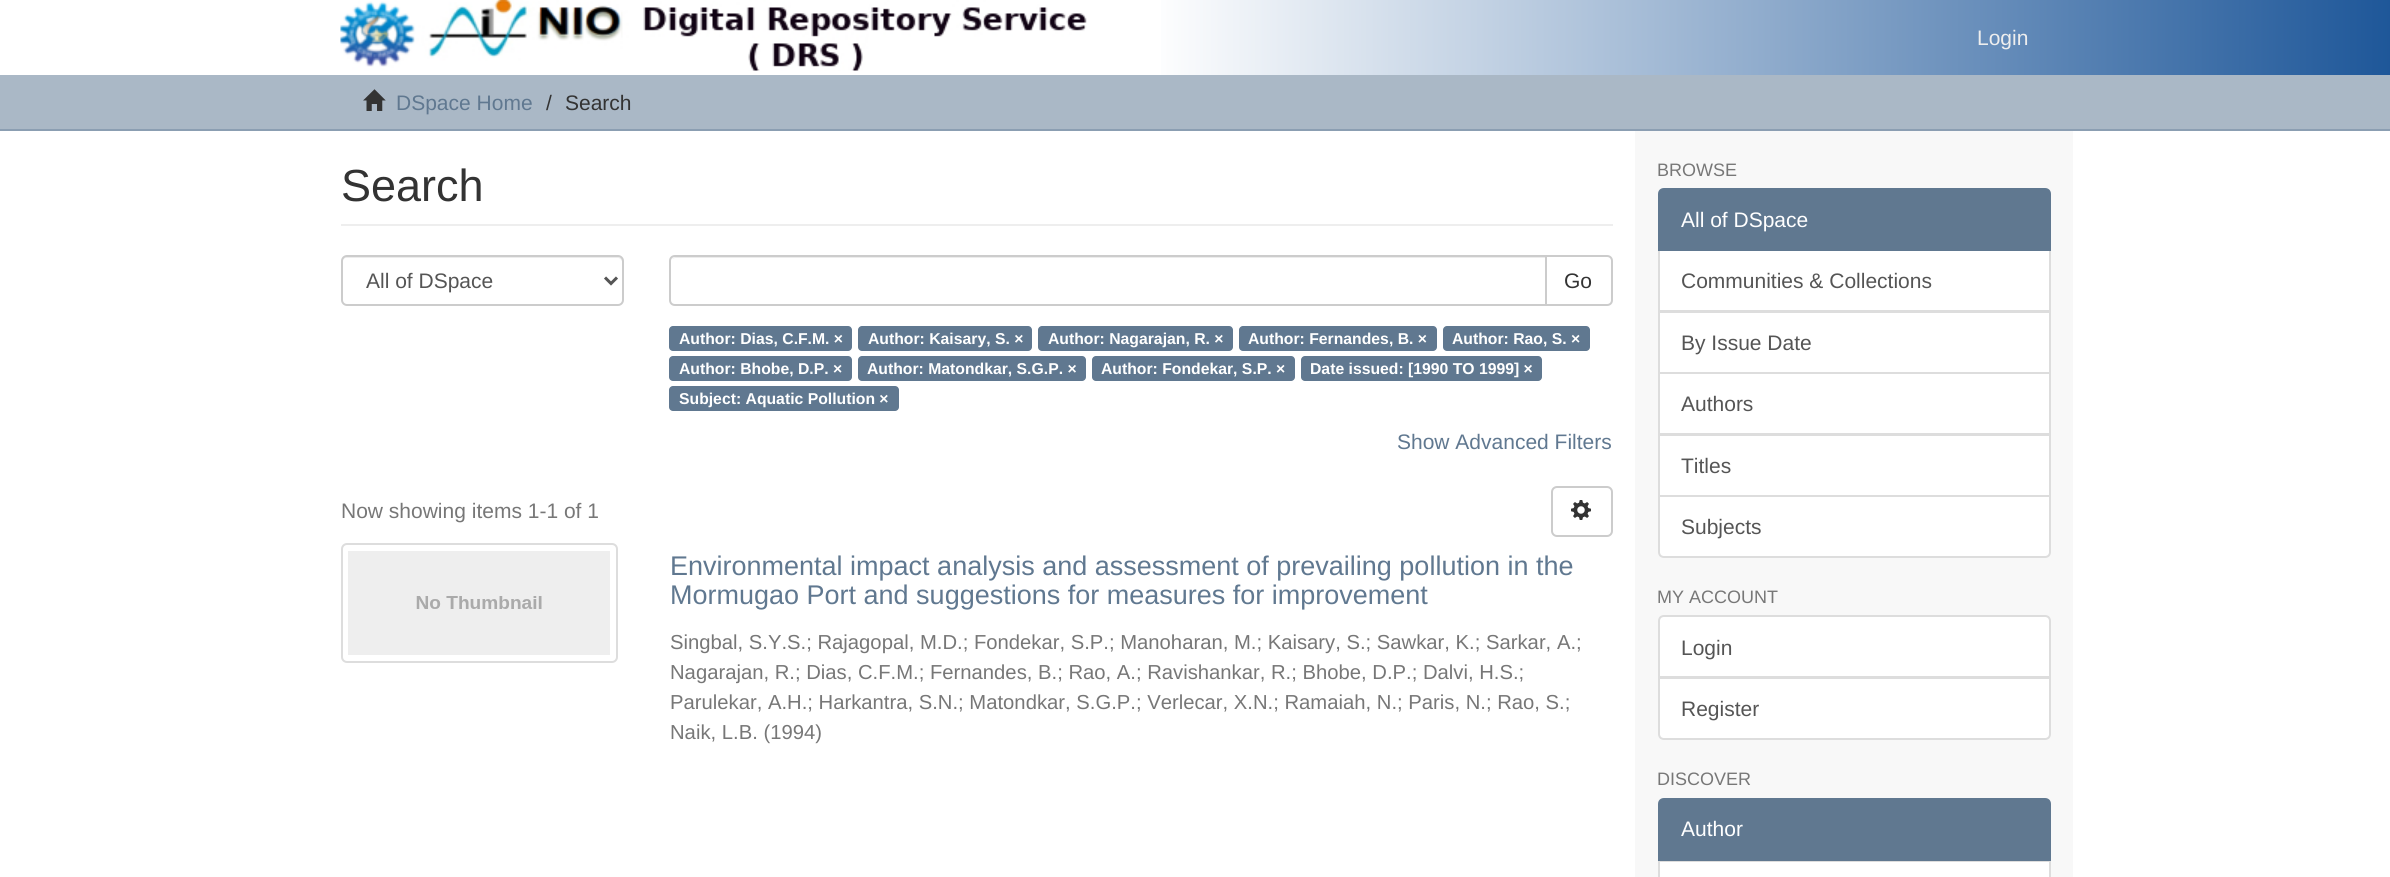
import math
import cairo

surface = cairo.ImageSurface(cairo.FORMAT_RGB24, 2390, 877)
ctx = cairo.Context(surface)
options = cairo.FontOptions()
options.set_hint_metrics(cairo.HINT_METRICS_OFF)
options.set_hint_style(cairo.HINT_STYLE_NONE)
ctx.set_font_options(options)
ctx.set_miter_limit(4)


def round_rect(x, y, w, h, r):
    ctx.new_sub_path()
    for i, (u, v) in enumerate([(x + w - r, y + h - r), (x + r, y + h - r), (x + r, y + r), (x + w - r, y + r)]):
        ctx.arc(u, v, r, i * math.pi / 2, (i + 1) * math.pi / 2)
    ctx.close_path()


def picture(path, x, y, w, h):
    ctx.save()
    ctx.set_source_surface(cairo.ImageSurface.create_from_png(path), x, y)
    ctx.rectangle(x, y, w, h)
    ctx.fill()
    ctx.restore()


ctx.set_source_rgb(1, 1, 1)
ctx.paint()
gradient = cairo.LinearGradient(0, 38, 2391, 37)
gradient.add_color_stop_rgba(0.48, 1, 1, 1, 1)
gradient.add_color_stop_rgba(1, 0.118, 0.341, 0.6, 1)
ctx.set_source(gradient)
ctx.rectangle(1161, 0, 1229, 75)
ctx.fill()
picture("img1.png", 340, 0, 747, 71)
ctx.select_font_face("Liberation Sans")
ctx.set_font_size(21)
ctx.set_source_rgb(0.933, 0.933, 0.933)
ctx.move_to(1977, 45)
ctx.show_text("Login")
ctx.set_source_rgb(0.667, 0.722, 0.776)
ctx.rectangle(0, 75, 2390, 54)
ctx.fill()
ctx.set_source_rgb(0.545, 0.62, 0.698)
ctx.rectangle(0, 129, 2390, 2)
ctx.fill()
picture("img2.png", 363, 89, 23, 22)
ctx.set_source_rgb(0.376, 0.471, 0.565)
ctx.move_to(396, 110)
ctx.show_text("DSpace Home")
ctx.set_source_rgb(0.2, 0.2, 0.2)
ctx.move_to(546, 110)
ctx.show_text("/")
ctx.move_to(565, 110)
ctx.show_text("Search")
ctx.set_source_rgb(0.969, 0.969, 0.969)
ctx.rectangle(1635, 131, 438, 746)
ctx.fill()
ctx.set_source_rgb(0.933, 0.933, 0.933)
ctx.rectangle(341, 224, 1272, 2)
ctx.fill()
ctx.set_font_size(45)
ctx.set_source_rgb(0.2, 0.2, 0.2)
ctx.move_to(341, 201)
ctx.show_text("Search")
ctx.set_source_rgb(0.925, 0.925, 0.925)
ctx.new_path()
ctx.move_to(346, 258)
ctx.line_to(618, 258)
ctx.curve_to(620, 258, 622, 260, 622, 262)
ctx.line_to(622, 303)
ctx.curve_to(623, 302, 623, 301, 623, 300)
ctx.line_to(623, 262)
ctx.curve_to(623, 259, 621, 257, 618, 257)
ctx.line_to(347, 257)
ctx.curve_to(344, 257, 342, 259, 342, 262)
ctx.curve_to(342, 260, 344, 258, 346, 258)
ctx.close_path()
ctx.fill()
round_rect(342, 256, 281, 49, 5)
ctx.set_source_rgb(0.8, 0.8, 0.8)
ctx.stroke()
ctx.new_path()
ctx.move_to(605, 277.5)
ctx.line_to(611, 283.5)
ctx.line_to(617, 277.5)
ctx.set_source_rgb(0.333, 0.333, 0.333)
ctx.set_line_width(3)
ctx.stroke()
ctx.set_font_size(21)
ctx.move_to(366, 288)
ctx.show_text("All of DSpace")
ctx.new_path()
ctx.move_to(1546, 256)
ctx.line_to(1607, 256)
ctx.curve_to(1610, 256, 1612, 258, 1612, 261)
ctx.line_to(1612, 300)
ctx.curve_to(1612, 303, 1610, 305, 1607, 305)
ctx.line_to(1546, 305)
ctx.close_path()
ctx.set_source_rgb(0.8, 0.8, 0.8)
ctx.set_line_width(2)
ctx.stroke()
ctx.set_source_rgb(1, 1, 1)
ctx.new_path()
ctx.move_to(675, 255)
ctx.line_to(1547, 255)
ctx.line_to(1547, 306)
ctx.line_to(675, 306)
ctx.curve_to(671.5, 306, 669, 303.5, 669, 300)
ctx.line_to(669, 261)
ctx.curve_to(669, 257.5, 671.5, 255, 675, 255)
ctx.close_path()
ctx.fill()
ctx.set_source_rgb(0.925, 0.925, 0.925)
ctx.new_path()
ctx.move_to(675, 258)
ctx.line_to(1545, 258)
ctx.line_to(1545, 257)
ctx.line_to(676, 257)
ctx.curve_to(674, 257, 673, 258, 672, 259)
ctx.close_path()
ctx.fill()
ctx.new_path()
ctx.move_to(675, 256)
ctx.line_to(1546, 256)
ctx.line_to(1546, 305)
ctx.line_to(675, 305)
ctx.curve_to(672, 305, 670, 303, 670, 300)
ctx.line_to(670, 261)
ctx.curve_to(670, 258, 672, 256, 675, 256)
ctx.close_path()
ctx.set_source_rgb(0.8, 0.8, 0.8)
ctx.stroke()
ctx.set_source_rgb(0.2, 0.2, 0.2)
ctx.move_to(1564, 288)
ctx.show_text("Go")
ctx.set_source_rgb(0.376, 0.471, 0.565)
round_rect(669, 326, 183, 25, 4)
ctx.fill()
ctx.select_font_face("Liberation Sans", cairo.FONT_SLANT_NORMAL, cairo.FONT_WEIGHT_BOLD)
ctx.set_font_size(15.75)
ctx.set_source_rgb(1, 1, 1)
ctx.move_to(679, 344)
ctx.show_text("Author: Dias, C.F.M. ×")
ctx.set_source_rgb(0.376, 0.471, 0.565)
round_rect(858, 326, 174, 25, 4)
ctx.fill()
ctx.set_source_rgb(1, 1, 1)
ctx.move_to(868, 344)
ctx.show_text("Author: Kaisary, S. ×")
ctx.set_source_rgb(0.376, 0.471, 0.565)
round_rect(1038, 326, 195, 25, 4)
ctx.fill()
ctx.set_source_rgb(1, 1, 1)
ctx.move_to(1048, 344)
ctx.show_text("Author: Nagarajan, R. ×")
ctx.set_source_rgb(0.376, 0.471, 0.565)
round_rect(1239, 326, 198, 25, 4)
ctx.fill()
ctx.set_source_rgb(1, 1, 1)
ctx.move_to(1248, 344)
ctx.show_text("Author: Fernandes, B. ×")
ctx.set_source_rgb(0.376, 0.471, 0.565)
round_rect(1443, 326, 147, 25, 4)
ctx.fill()
ctx.set_source_rgb(1, 1, 1)
ctx.move_to(1452, 344)
ctx.show_text("Author: Rao, S. ×")
ctx.set_source_rgb(0.376, 0.471, 0.565)
round_rect(669, 356, 183, 25, 4)
ctx.fill()
ctx.set_source_rgb(1, 1, 1)
ctx.move_to(679, 374)
ctx.show_text("Author: Bhobe, D.P. ×")
ctx.set_source_rgb(0.376, 0.471, 0.565)
round_rect(858, 356, 228, 25, 4)
ctx.fill()
ctx.set_source_rgb(1, 1, 1)
ctx.move_to(867, 374)
ctx.show_text("Author: Matondkar, S.G.P. ×")
ctx.set_source_rgb(0.376, 0.471, 0.565)
round_rect(1092, 356, 203, 25, 4)
ctx.fill()
ctx.set_source_rgb(1, 1, 1)
ctx.move_to(1101, 374)
ctx.show_text("Author: Fondekar, S.P. ×")
ctx.set_source_rgb(0.376, 0.471, 0.565)
round_rect(1301, 356, 241, 25, 4)
ctx.fill()
ctx.set_source_rgb(1, 1, 1)
ctx.move_to(1310, 374)
ctx.show_text("Date issued: [1990 TO 1999] ×")
ctx.set_source_rgb(0.376, 0.471, 0.565)
round_rect(669, 386, 230, 25, 4)
ctx.fill()
ctx.set_source_rgb(1, 1, 1)
ctx.move_to(679, 404)
ctx.show_text("Subject: Aquatic Pollution ×")
ctx.select_font_face("Liberation Sans")
ctx.set_font_size(21)
ctx.set_source_rgb(0.376, 0.471, 0.565)
ctx.move_to(1397, 449)
ctx.show_text("Show Advanced Filters")
ctx.set_source_rgb(0.467, 0.467, 0.467)
ctx.move_to(341, 518)
ctx.show_text("Now showing items 1-1 of 1")
round_rect(1552, 487, 60, 49, 5)
ctx.set_source_rgb(0.8, 0.8, 0.8)
ctx.stroke()
picture("img3.png", 1571, 500, 20, 20)
round_rect(342, 544, 275, 118, 5)
ctx.set_source_rgb(0.867, 0.867, 0.867)
ctx.stroke()
picture("img4.png", 348, 551, 262, 104)
ctx.set_font_size(27)
ctx.set_source_rgb(0.376, 0.471, 0.565)
ctx.move_to(670, 575)
ctx.show_text("Environmental impact analysis and assessment of prevailing pollution in the")
ctx.move_to(670, 604)
ctx.show_text("Mormugao Port and suggestions for measures for improvement")
ctx.set_font_size(20.25)
ctx.set_source_rgb(0.467, 0.467, 0.467)
ctx.move_to(670, 649)
ctx.show_text("Singbal, S.Y.S.; Rajagopal, M.D.; Fondekar, S.P.; Manoharan, M.; Kaisary, S.; Sawkar, K.; Sarkar, A.;")
ctx.move_to(670, 679)
ctx.show_text("Nagarajan, R.; Dias, C.F.M.; Fernandes, B.; Rao, A.; Ravishankar, R.; Bhobe, D.P.; Dalvi, H.S.;")
ctx.move_to(670, 709)
ctx.show_text("Parulekar, A.H.; Harkantra, S.N.; Matondkar, S.G.P.; Verlecar, X.N.; Ramaiah, N.; Paris, N.; Rao, S.;")
ctx.move_to(670, 739)
ctx.show_text("Naik, L.B. (1994)")
ctx.set_font_size(18)
ctx.move_to(1657, 176)
ctx.show_text("BROWSE")
ctx.set_source_rgb(1, 1, 1)
ctx.rectangle(1659, 250, 391, 61)
ctx.fill_preserve()
ctx.set_source_rgb(0.867, 0.867, 0.867)
ctx.stroke()
ctx.set_source_rgb(0.376, 0.471, 0.565)
ctx.new_path()
ctx.move_to(1664, 189)
ctx.line_to(2045, 189)
ctx.curve_to(2048, 189, 2050, 191, 2050, 194)
ctx.line_to(2050, 250)
ctx.line_to(1659, 250)
ctx.line_to(1659, 194)
ctx.curve_to(1659, 191, 1661, 189, 1664, 189)
ctx.close_path()
ctx.fill_preserve()
ctx.stroke()
ctx.set_font_size(21)
ctx.set_source_rgb(1, 1, 1)
ctx.move_to(1681, 227)
ctx.show_text("All of DSpace")
ctx.set_source_rgb(0.333, 0.333, 0.333)
ctx.move_to(1681, 288)
ctx.show_text("Communities & Collections")
ctx.set_source_rgb(1, 1, 1)
ctx.rectangle(1659, 312, 391, 61)
ctx.fill_preserve()
ctx.set_source_rgb(0.867, 0.867, 0.867)
ctx.stroke()
ctx.set_source_rgb(0.333, 0.333, 0.333)
ctx.move_to(1681, 350)
ctx.show_text("By Issue Date")
ctx.set_source_rgb(1, 1, 1)
ctx.rectangle(1659, 373, 391, 61)
ctx.fill_preserve()
ctx.set_source_rgb(0.867, 0.867, 0.867)
ctx.stroke()
ctx.set_source_rgb(0.333, 0.333, 0.333)
ctx.move_to(1681, 411)
ctx.show_text("Authors")
ctx.set_source_rgb(1, 1, 1)
ctx.rectangle(1659, 435, 391, 61)
ctx.fill_preserve()
ctx.set_source_rgb(0.867, 0.867, 0.867)
ctx.stroke()
ctx.set_source_rgb(0.333, 0.333, 0.333)
ctx.move_to(1681, 473)
ctx.show_text("Titles")
ctx.set_source_rgb(1, 1, 1)
ctx.new_path()
ctx.move_to(1659, 496)
ctx.line_to(2050, 496)
ctx.line_to(2050, 552)
ctx.curve_to(2050, 555, 2048, 557, 2045, 557)
ctx.line_to(1664, 557)
ctx.curve_to(1661, 557, 1659, 555, 1659, 552)
ctx.close_path()
ctx.fill_preserve()
ctx.set_source_rgb(0.867, 0.867, 0.867)
ctx.stroke()
ctx.set_source_rgb(0.333, 0.333, 0.333)
ctx.move_to(1681, 534)
ctx.show_text("Subjects")
ctx.set_font_size(18)
ctx.set_source_rgb(0.467, 0.467, 0.467)
ctx.move_to(1657, 603)
ctx.show_text("MY ACCOUNT")
ctx.set_source_rgb(1, 1, 1)
ctx.new_path()
ctx.move_to(1664, 616)
ctx.line_to(2045, 616)
ctx.curve_to(2048, 616, 2050, 618, 2050, 621)
ctx.line_to(2050, 677)
ctx.line_to(1659, 677)
ctx.line_to(1659, 621)
ctx.curve_to(1659, 618, 1661, 616, 1664, 616)
ctx.close_path()
ctx.fill_preserve()
ctx.set_source_rgb(0.867, 0.867, 0.867)
ctx.stroke()
ctx.set_font_size(21)
ctx.set_source_rgb(0.333, 0.333, 0.333)
ctx.move_to(1681, 655)
ctx.show_text("Login")
ctx.set_source_rgb(1, 1, 1)
ctx.new_path()
ctx.move_to(1659, 678)
ctx.line_to(2050, 678)
ctx.line_to(2050, 734)
ctx.curve_to(2050, 737, 2048, 739, 2045, 739)
ctx.line_to(1664, 739)
ctx.curve_to(1661, 739, 1659, 737, 1659, 734)
ctx.close_path()
ctx.fill_preserve()
ctx.set_source_rgb(0.867, 0.867, 0.867)
ctx.stroke()
ctx.set_source_rgb(0.333, 0.333, 0.333)
ctx.move_to(1681, 716)
ctx.show_text("Register")
ctx.set_font_size(18)
ctx.set_source_rgb(0.467, 0.467, 0.467)
ctx.move_to(1657, 785)
ctx.show_text("DISCOVER")
ctx.set_source_rgb(1, 1, 1)
ctx.rectangle(1659, 861, 391, 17)
ctx.fill_preserve()
ctx.set_source_rgb(0.867, 0.867, 0.867)
ctx.stroke()
ctx.set_source_rgb(0.376, 0.471, 0.565)
ctx.new_path()
ctx.move_to(1664, 799)
ctx.line_to(2045, 799)
ctx.curve_to(2048, 799, 2050, 801, 2050, 804)
ctx.line_to(2050, 860)
ctx.line_to(1659, 860)
ctx.line_to(1659, 804)
ctx.curve_to(1659, 801, 1661, 799, 1664, 799)
ctx.close_path()
ctx.fill_preserve()
ctx.stroke()
ctx.set_font_size(21)
ctx.set_source_rgb(1, 1, 1)
ctx.move_to(1681, 836)
ctx.show_text("Author")
surface.write_to_png("page.png")
